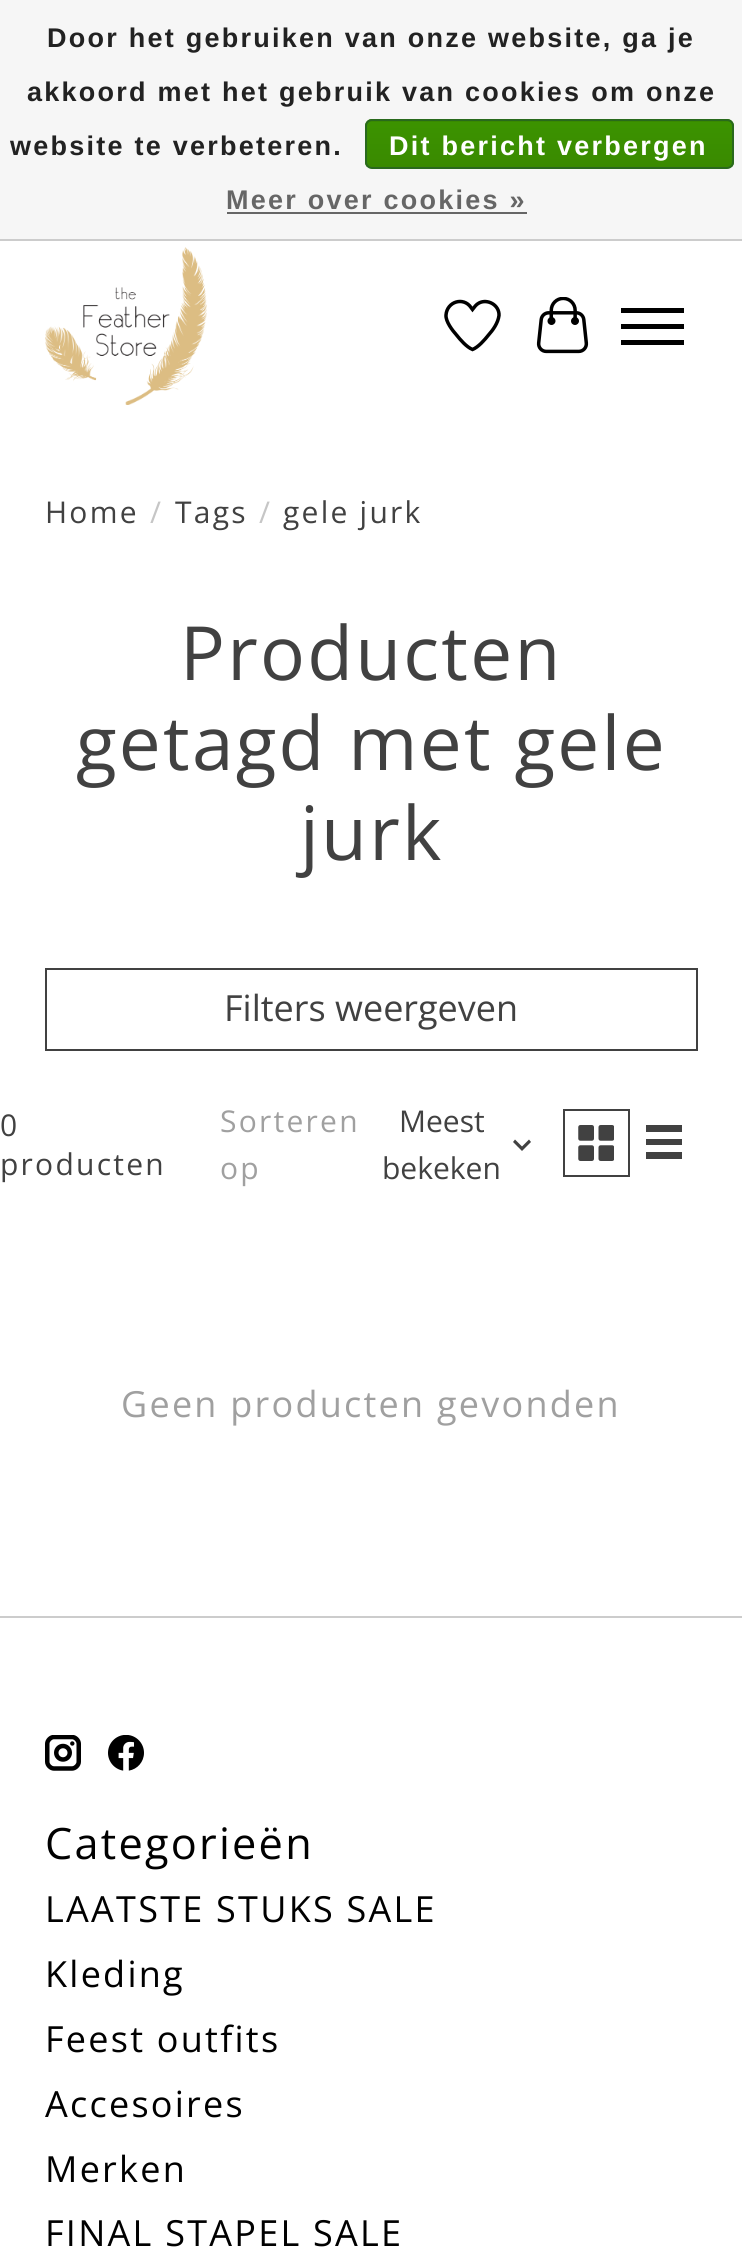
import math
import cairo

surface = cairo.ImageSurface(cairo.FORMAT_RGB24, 742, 2263)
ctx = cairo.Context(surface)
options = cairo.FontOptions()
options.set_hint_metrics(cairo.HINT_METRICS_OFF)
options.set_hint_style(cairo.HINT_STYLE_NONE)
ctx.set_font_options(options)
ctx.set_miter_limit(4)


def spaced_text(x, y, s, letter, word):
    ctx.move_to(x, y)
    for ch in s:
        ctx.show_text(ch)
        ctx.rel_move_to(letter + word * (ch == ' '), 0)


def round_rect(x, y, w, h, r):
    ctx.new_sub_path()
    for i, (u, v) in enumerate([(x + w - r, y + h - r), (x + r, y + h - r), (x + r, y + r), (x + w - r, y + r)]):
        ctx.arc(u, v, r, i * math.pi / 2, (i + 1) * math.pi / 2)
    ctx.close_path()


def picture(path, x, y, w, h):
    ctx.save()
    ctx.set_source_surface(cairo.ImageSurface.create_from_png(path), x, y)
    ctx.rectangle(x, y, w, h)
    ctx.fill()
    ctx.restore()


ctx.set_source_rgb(1, 1, 1)
ctx.paint()
ctx.set_source_rgb(0.961, 0.961, 0.961)
ctx.rectangle(0, 0, 742, 239)
ctx.fill()
ctx.set_source_rgb(0.8, 0.8, 0.8)
ctx.rectangle(0, 239, 742, 2)
ctx.fill()
ctx.select_font_face("Liberation Sans", cairo.FONT_SLANT_NORMAL, cairo.FONT_WEIGHT_BOLD)
ctx.set_font_size(27)
ctx.set_source_rgb(0.133, 0.133, 0.133)
spaced_text(47, 47, "Door het gebruiken van onze website, ga je", 2.25, 0)
spaced_text(27, 101, "akkoord met het gebruik van cookies om onze", 2.25, 0)
spaced_text(10, 155, "website te verbeteren.", 2.25, 0)
ctx.save()
round_rect(365, 119, 369, 50, 7)
ctx.clip()
gradient = cairo.LinearGradient(549, 76, 549, 122)
gradient.add_color_stop_rgba(0, 0.235, 0.576, 0, 1)
gradient.add_color_stop_rgba(1, 0.224, 0.541, 0, 1)
ctx.set_source(gradient)
ctx.rectangle(365, 119, 369, 3)
ctx.fill()
gradient = cairo.LinearGradient(549, 121, 549, 167)
gradient.add_color_stop_rgba(0, 0.235, 0.576, 0, 1)
gradient.add_color_stop_rgba(1, 0.224, 0.541, 0, 1)
ctx.set_source(gradient)
ctx.rectangle(365, 122, 369, 45)
ctx.fill()
ctx.restore()
round_rect(366, 120, 367, 48, 6)
ctx.set_source_rgb(0.161, 0.412, 0.114)
ctx.stroke()
ctx.set_source_rgb(1, 1, 1)
spaced_text(389, 155, "Dit bericht verbergen", 2.25, 0)
ctx.set_source_rgb(0.4, 0.4, 0.4)
spaced_text(226, 209, "Meer over cookies »", 2.25, 0)
ctx.rectangle(227, 212, 300, 2)
ctx.fill()
picture("img1.png", 45, 247, 162, 158)
ctx.new_path()
ctx.move_to(471, 307.5)
ctx.line_to(472.5, 309.5)
ctx.curve_to(474.5, 307, 476, 304.5, 479, 303)
ctx.curve_to(487.5, 298.5, 499.5, 305, 499, 315.5)
ctx.curve_to(498, 323, 493, 330, 488.5, 335)
ctx.curve_to(484.5, 340, 478.5, 347, 472.5, 349.5)
ctx.curve_to(466.5, 347, 460.5, 340, 456.5, 335)
ctx.curve_to(452.5, 330.5, 445.5, 321.5, 446, 315)
ctx.curve_to(447, 301.5, 463.5, 296.5, 471, 307.5)
ctx.close_path()
ctx.set_source_rgb(0, 0, 0)
ctx.set_line_width(3.5)
ctx.stroke()
picture("img2.png", 536, 297, 53, 57)
ctx.rectangle(621, 324, 63, 5)
ctx.fill()
ctx.rectangle(621, 308, 63, 5)
ctx.fill()
ctx.rectangle(621, 340, 63, 5)
ctx.fill()
ctx.select_font_face("Open Sans")
ctx.set_font_size(30)
ctx.set_source_rgb(0.255, 0.255, 0.255)
spaced_text(45, 523, "Home", 2.25, 0)
ctx.set_source_rgb(0.776, 0.776, 0.776)
spaced_text(150, 523, "/", 2.25, 0)
ctx.set_source_rgb(0.255, 0.255, 0.255)
spaced_text(175, 523, "Tags", 2.25, 0)
ctx.set_source_rgb(0.776, 0.776, 0.776)
spaced_text(259, 523, "/", 2.25, 0)
ctx.set_source_rgb(0.255, 0.255, 0.255)
spaced_text(283, 523, "gele jurk", 2.25, 0)
ctx.set_font_size(74.75)
spaced_text(180, 680, "Producten", 2.25, 0)
spaced_text(76, 770, "getagd met gele", 2.25, 0)
spaced_text(300, 860, "jurk", 2.25, 0)
ctx.rectangle(46, 969, 651, 81)
ctx.set_line_width(2)
ctx.stroke()
ctx.set_font_size(36)
ctx.move_to(224, 1021)
ctx.show_text("Filters weergeven")
ctx.set_font_size(30)
spaced_text(0, 1136, "0", 2.25, 0)
spaced_text(0, 1175, "producten", 2.25, 0)
ctx.set_source_rgb(0.627, 0.627, 0.627)
spaced_text(220, 1132, "Sorteren", 2.25, 0)
spaced_text(220, 1179, "op", 2.25, 0)
ctx.set_source_rgb(0.255, 0.255, 0.255)
ctx.move_to(399, 1132)
ctx.show_text("Meest")
ctx.move_to(382, 1179)
ctx.show_text("bekeken")
ctx.new_path()
ctx.move_to(522, 1151)
ctx.line_to(513, 1142)
ctx.line_to(515, 1139.5)
ctx.line_to(522, 1146.5)
ctx.line_to(529, 1139.5)
ctx.line_to(531, 1142)
ctx.close_path()
ctx.fill()
ctx.rectangle(564, 1110, 65, 66)
ctx.stroke()
picture("img3.png", 578, 1125, 36, 36)
ctx.rectangle(646, 1125, 36, 7)
ctx.fill()
ctx.rectangle(646, 1139, 36, 6)
ctx.fill()
ctx.rectangle(646, 1152, 36, 7)
ctx.fill()
ctx.set_font_size(36)
ctx.set_source_rgb(0.627, 0.627, 0.627)
spaced_text(121, 1417, "Geen producten gevonden", 2.25, 0)
ctx.set_source_rgb(0.8, 0.8, 0.8)
ctx.rectangle(0, 1616, 742, 2)
ctx.fill()
picture("img4.png", 45, 1735, 36, 36)
picture("img5.png", 108, 1735, 36, 36)
ctx.set_font_size(43.25)
ctx.set_source_rgb(0, 0, 0)
spaced_text(45, 1859, "Categorieën", 2.25, 0)
ctx.set_font_size(36)
spaced_text(45, 1922, "LAATSTE STUKS SALE", 2.25, 0)
spaced_text(45, 1987, "Kleding", 2.25, 0)
spaced_text(45, 2052, "Feest outfits", 2.25, 0)
spaced_text(45, 2117, "Accesoires", 2.25, 0)
spaced_text(45, 2182, "Merken", 2.25, 0)
spaced_text(45, 2246, "FINAL STAPEL SALE", 2.25, 0)
surface.write_to_png("page.png")
